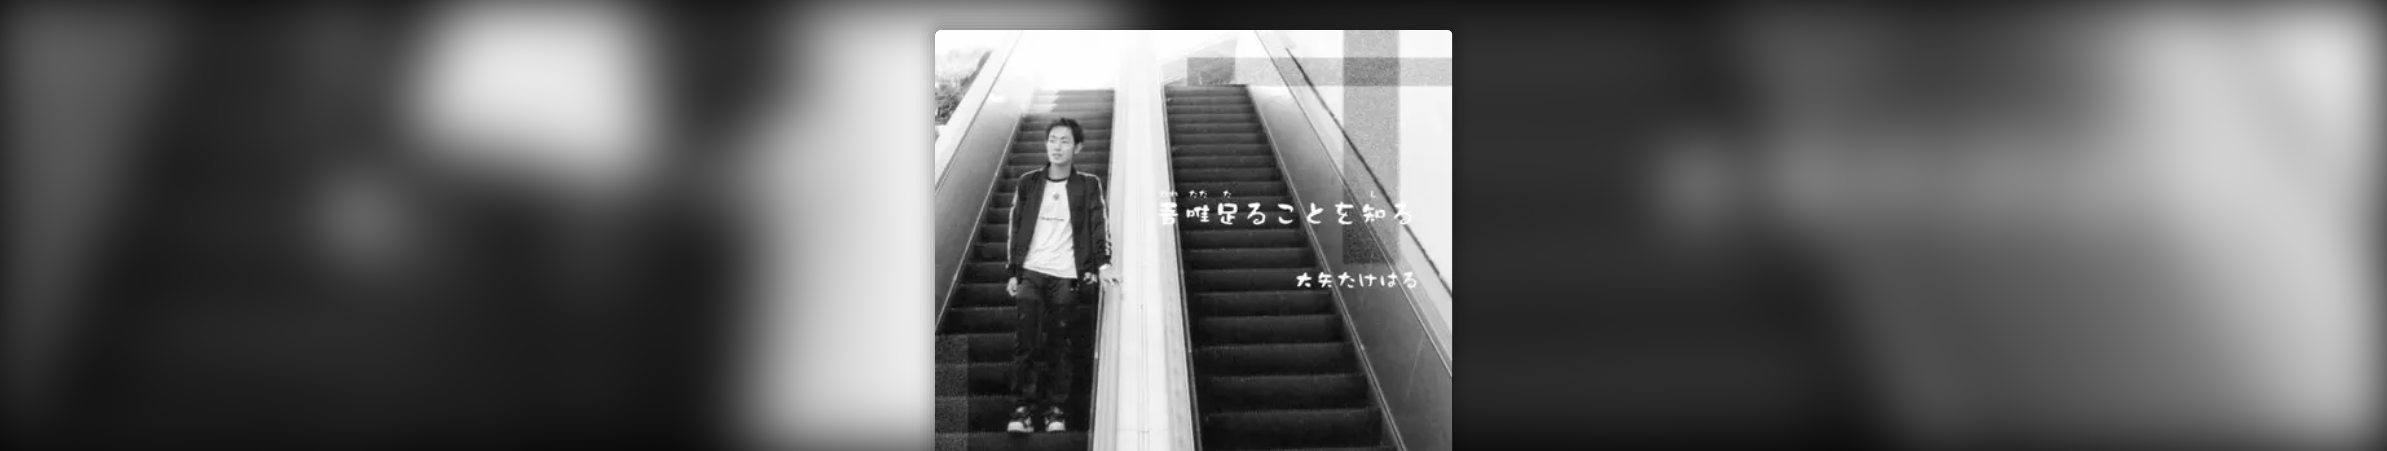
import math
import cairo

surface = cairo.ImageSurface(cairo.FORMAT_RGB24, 2387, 451)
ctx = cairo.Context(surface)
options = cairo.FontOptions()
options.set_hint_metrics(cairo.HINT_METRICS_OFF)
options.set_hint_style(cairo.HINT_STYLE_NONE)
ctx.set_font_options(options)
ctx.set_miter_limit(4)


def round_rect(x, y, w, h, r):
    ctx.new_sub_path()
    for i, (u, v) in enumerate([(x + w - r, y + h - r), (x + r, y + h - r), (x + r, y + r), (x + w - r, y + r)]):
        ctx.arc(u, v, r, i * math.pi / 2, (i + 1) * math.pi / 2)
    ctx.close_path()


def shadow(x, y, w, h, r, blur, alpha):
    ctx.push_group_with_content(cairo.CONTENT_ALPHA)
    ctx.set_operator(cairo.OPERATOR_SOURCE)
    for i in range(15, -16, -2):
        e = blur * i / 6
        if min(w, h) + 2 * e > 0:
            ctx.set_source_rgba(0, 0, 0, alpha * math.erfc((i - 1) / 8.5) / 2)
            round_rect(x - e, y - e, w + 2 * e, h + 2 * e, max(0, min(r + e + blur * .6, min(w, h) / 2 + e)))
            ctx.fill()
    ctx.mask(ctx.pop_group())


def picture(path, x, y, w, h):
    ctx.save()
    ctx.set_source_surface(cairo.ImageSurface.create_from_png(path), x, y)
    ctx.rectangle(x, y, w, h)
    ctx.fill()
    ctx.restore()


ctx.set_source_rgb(0, 0, 0)
ctx.paint()
picture("img1.png", 0, 0, 2387, 451)
shadow(935, 30, 518, 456, 5, 10, 0.47)
ctx.set_source_rgb(0, 0, 0)
ctx.new_path()
ctx.move_to(940, 30)
ctx.line_to(1448, 30)
ctx.curve_to(1451, 30, 1453, 32, 1453, 35)
ctx.line_to(1453, 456)
ctx.line_to(935, 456)
ctx.line_to(935, 35)
ctx.curve_to(935, 32, 937, 30, 940, 30)
ctx.close_path()
ctx.fill()
picture("img2.png", 935, 30, 518, 421)
surface.write_to_png("page.png")
